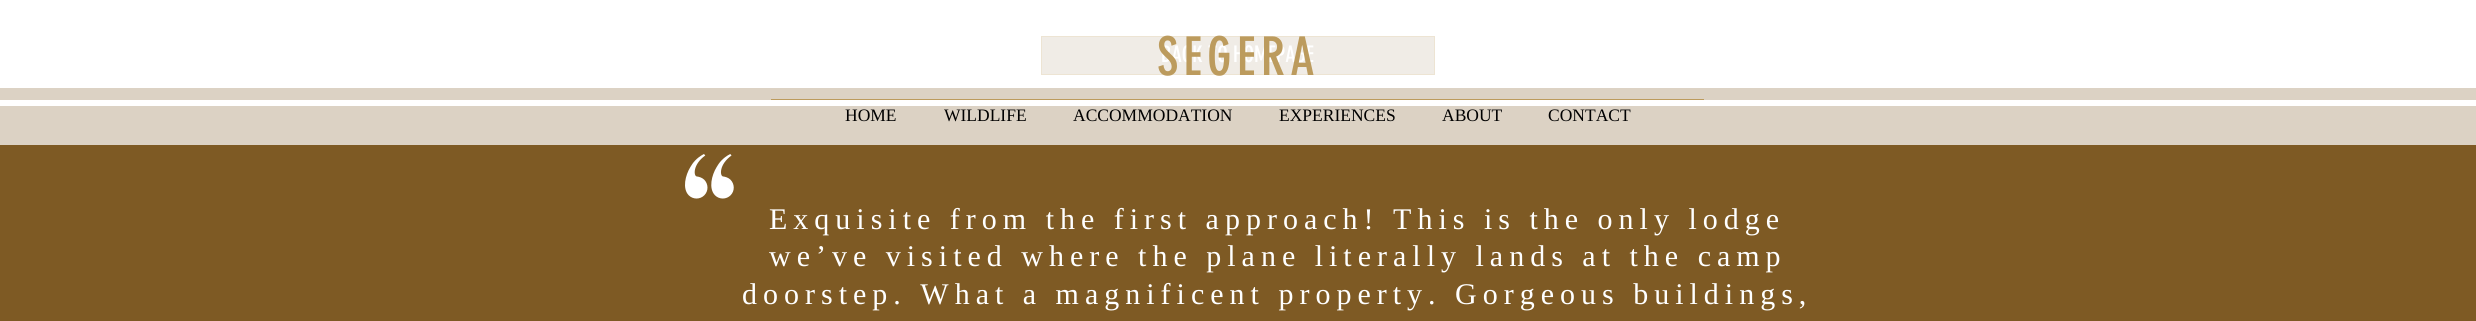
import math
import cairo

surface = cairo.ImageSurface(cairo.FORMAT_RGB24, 2476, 321)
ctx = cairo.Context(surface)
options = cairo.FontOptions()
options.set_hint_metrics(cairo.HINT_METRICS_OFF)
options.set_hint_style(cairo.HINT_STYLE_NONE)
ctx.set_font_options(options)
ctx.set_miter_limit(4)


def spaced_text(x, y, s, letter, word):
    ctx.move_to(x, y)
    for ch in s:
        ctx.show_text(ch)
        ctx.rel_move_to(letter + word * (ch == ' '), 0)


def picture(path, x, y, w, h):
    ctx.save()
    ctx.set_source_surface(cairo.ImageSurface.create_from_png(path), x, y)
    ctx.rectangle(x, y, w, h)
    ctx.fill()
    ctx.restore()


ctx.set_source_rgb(1, 1, 1)
ctx.paint()
ctx.set_source_rgb(0.941, 0.925, 0.902)
ctx.rectangle(1041.5, 36.5, 393, 38)
ctx.fill_preserve()
ctx.set_source_rgb(0.929, 0.894, 0.827)
ctx.set_line_width(1)
ctx.stroke()
ctx.select_font_face("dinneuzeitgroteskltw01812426")
ctx.set_font_size(22.5)
ctx.set_source_rgb(1, 1, 1)
ctx.move_to(1161, 62)
ctx.show_text("BACK TO HOMEPAGE")
ctx.set_font_size(52.5)
ctx.set_source_rgb(0.737, 0.608, 0.365)
spaced_text(1157, 75, "SEGERA", 5.25, 0)
ctx.set_source_rgb(0.863, 0.824, 0.769)
ctx.rectangle(0, 88, 2476, 57)
ctx.fill()
ctx.set_source_rgb(0.737, 0.608, 0.365)
ctx.rectangle(771, 99, 933, 1)
ctx.fill()
ctx.select_font_face("Liberation Serif")
ctx.set_font_size(17.5)
ctx.set_source_rgb(0, 0, 0)
ctx.move_to(845, 121)
ctx.show_text("HOME")
ctx.move_to(944, 121)
ctx.show_text("WILDLIFE")
ctx.move_to(1073, 121)
ctx.show_text("ACCOMMODATION")
ctx.move_to(1279, 121)
ctx.show_text("EXPERIENCES")
ctx.move_to(1442, 121)
ctx.show_text("ABOUT")
ctx.move_to(1548, 121)
ctx.show_text("CONTACT")
ctx.set_source_rgb(0.494, 0.353, 0.141)
ctx.rectangle(0, 145, 2476, 176)
ctx.fill()
ctx.set_source_rgb(1, 1, 1)
ctx.rectangle(0, 100, 2476, 6)
ctx.fill()
picture("img1.png", 685, 154, 49, 45)
ctx.set_font_size(30)
spaced_text(769, 229, "Exquisite from the first approach! This is the only lodge", 6, 0)
spaced_text(769, 266, "we’ve visited where the plane literally lands at the camp", 6, 0)
spaced_text(742, 304, "doorstep. What a magnificent property. Gorgeous buildings,", 6, 0)
surface.write_to_png("page.png")
